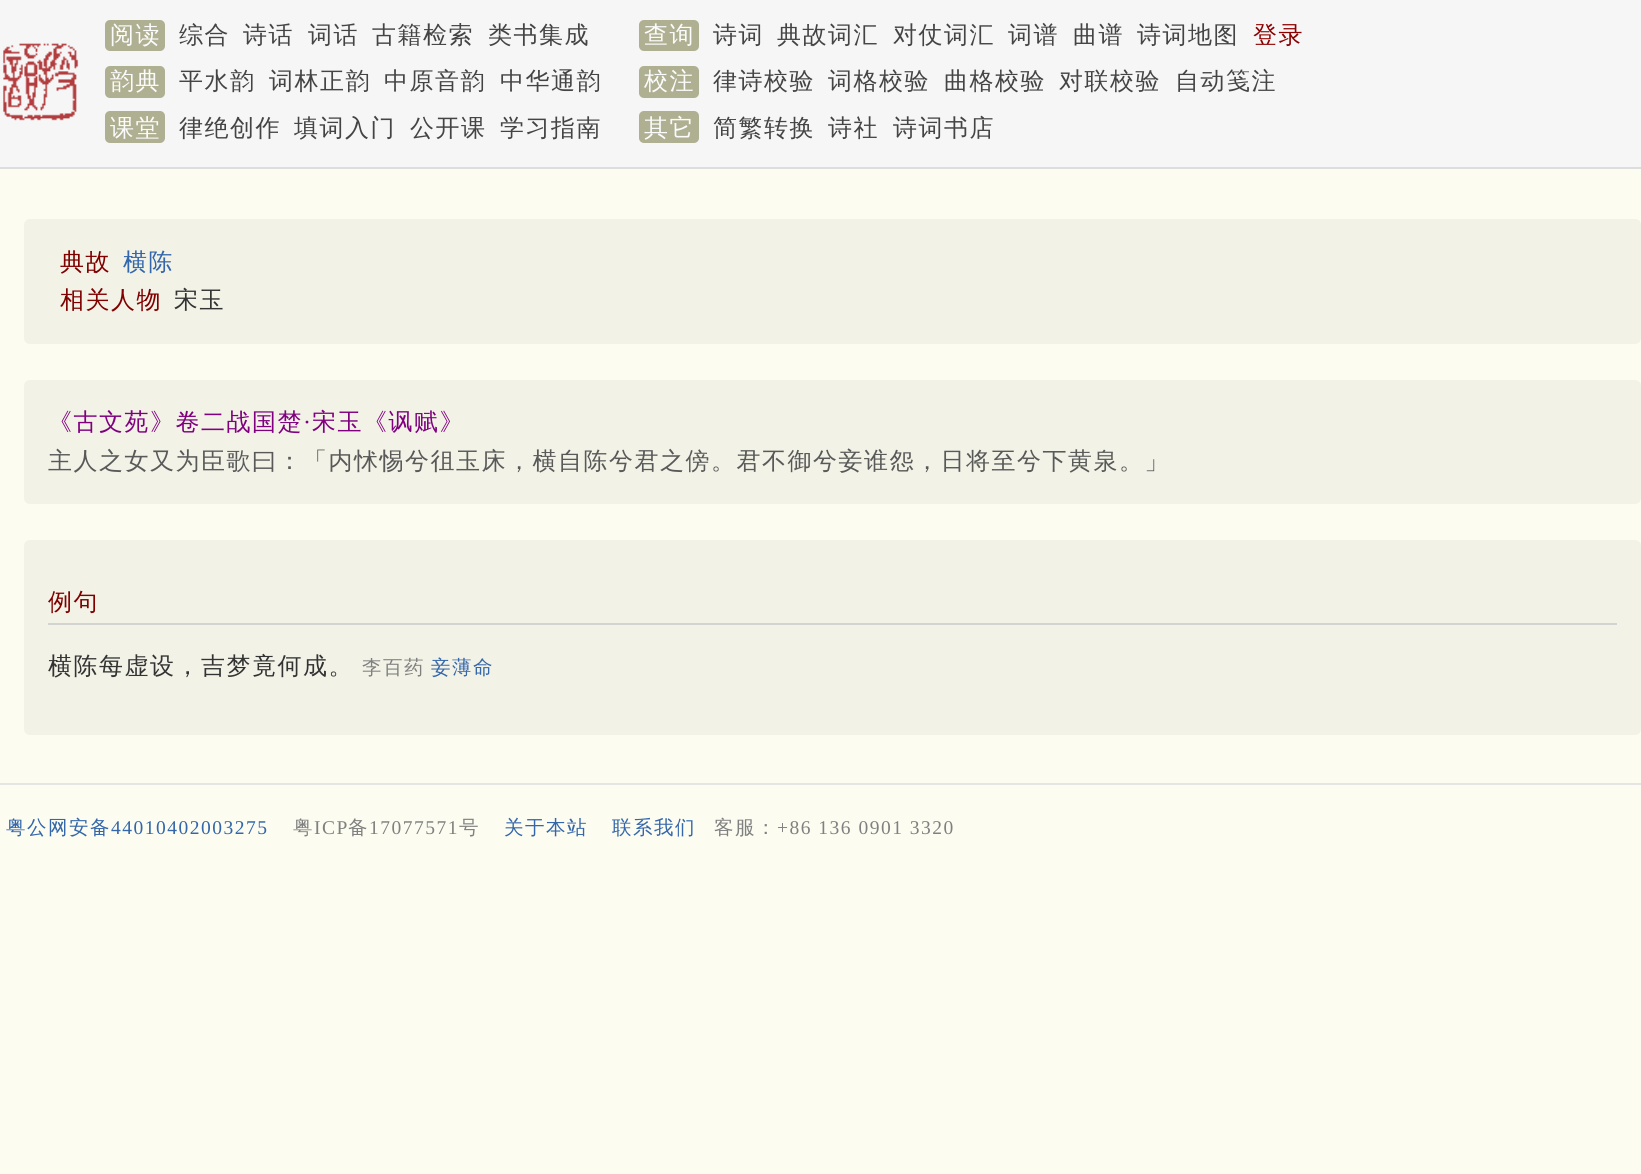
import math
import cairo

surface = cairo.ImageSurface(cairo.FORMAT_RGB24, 1641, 1174)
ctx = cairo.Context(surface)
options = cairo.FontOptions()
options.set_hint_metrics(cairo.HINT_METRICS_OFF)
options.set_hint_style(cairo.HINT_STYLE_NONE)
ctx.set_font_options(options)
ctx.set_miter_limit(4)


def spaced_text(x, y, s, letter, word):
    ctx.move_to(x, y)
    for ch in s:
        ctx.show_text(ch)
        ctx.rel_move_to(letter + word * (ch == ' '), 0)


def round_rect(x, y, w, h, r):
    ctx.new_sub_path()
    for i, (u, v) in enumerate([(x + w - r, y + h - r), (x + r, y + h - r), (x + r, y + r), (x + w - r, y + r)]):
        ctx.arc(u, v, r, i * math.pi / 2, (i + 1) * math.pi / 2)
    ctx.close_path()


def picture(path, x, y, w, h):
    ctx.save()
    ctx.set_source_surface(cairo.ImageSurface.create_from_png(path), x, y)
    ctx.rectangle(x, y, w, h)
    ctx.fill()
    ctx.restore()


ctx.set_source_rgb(0.988, 0.988, 0.945)
ctx.paint()
ctx.set_source_rgb(0.961, 0.961, 0.961)
ctx.rectangle(0, 0, 1641, 167)
ctx.fill()
ctx.set_source_rgb(0.867, 0.867, 0.867)
ctx.rectangle(0, 167, 1641, 2)
ctx.fill()
ctx.set_source_rgb(0.686, 0.686, 0.573)
round_rect(105, 20, 60, 31, 5)
ctx.fill()
ctx.select_font_face("WenQuanYi Zen Hei Medium")
ctx.set_font_size(24)
ctx.set_source_rgb(0.984, 0.984, 0.984)
spaced_text(110, 43, "阅读", 1.5, 0)
ctx.set_source_rgb(0.267, 0.267, 0.267)
spaced_text(179, 43, "综合", 1.5, 0)
spaced_text(243, 43, "诗话", 1.5, 0)
spaced_text(308, 43, "词话", 1.5, 0)
spaced_text(372, 43, "古籍检索", 1.5, 0)
spaced_text(488, 43, "类书集成", 1.5, 0)
ctx.set_source_rgb(0.686, 0.686, 0.573)
round_rect(639, 20, 60, 31, 5)
ctx.fill()
ctx.set_source_rgb(0.984, 0.984, 0.984)
spaced_text(644, 43, "查询", 1.5, 0)
ctx.set_source_rgb(0.267, 0.267, 0.267)
spaced_text(713, 43, "诗词", 1.5, 0)
spaced_text(777, 43, "典故词汇", 1.5, 0)
spaced_text(893, 43, "对仗词汇", 1.5, 0)
spaced_text(1008, 43, "词谱", 1.5, 0)
spaced_text(1073, 43, "曲谱", 1.5, 0)
spaced_text(1137, 43, "诗词地图", 1.5, 0)
ctx.set_source_rgb(0.545, 0, 0)
spaced_text(1253, 43, "登录", 1.5, 0)
picture("img1.png", 3, 43, 76, 78)
ctx.set_source_rgb(0.686, 0.686, 0.573)
round_rect(105, 66, 60, 32, 5)
ctx.fill()
ctx.set_source_rgb(0.984, 0.984, 0.984)
spaced_text(110, 89, "韵典", 1.5, 0)
ctx.set_source_rgb(0.267, 0.267, 0.267)
spaced_text(179, 89, "平水韵", 1.5, 0)
spaced_text(269, 89, "词林正韵", 1.5, 0)
spaced_text(384, 89, "中原音韵", 1.5, 0)
spaced_text(500, 89, "中华通韵", 1.5, 0)
ctx.set_source_rgb(0.686, 0.686, 0.573)
round_rect(639, 66, 60, 32, 5)
ctx.fill()
ctx.set_source_rgb(0.984, 0.984, 0.984)
spaced_text(644, 89, "校注", 1.5, 0)
ctx.set_source_rgb(0.267, 0.267, 0.267)
spaced_text(713, 89, "律诗校验", 1.5, 0)
spaced_text(828, 89, "词格校验", 1.5, 0)
spaced_text(944, 89, "曲格校验", 1.5, 0)
spaced_text(1059, 89, "对联校验", 1.5, 0)
spaced_text(1175, 89, "自动笺注", 1.5, 0)
ctx.set_source_rgb(0.686, 0.686, 0.573)
round_rect(105, 111, 60, 32, 5)
ctx.fill()
ctx.set_source_rgb(0.984, 0.984, 0.984)
spaced_text(110, 136, "课堂", 1.5, 0)
ctx.set_source_rgb(0.267, 0.267, 0.267)
spaced_text(179, 136, "律绝创作", 1.5, 0)
spaced_text(294, 136, "填词入门", 1.5, 0)
spaced_text(410, 136, "公开课", 1.5, 0)
spaced_text(500, 136, "学习指南", 1.5, 0)
ctx.set_source_rgb(0.686, 0.686, 0.573)
round_rect(639, 111, 60, 32, 5)
ctx.fill()
ctx.set_source_rgb(0.984, 0.984, 0.984)
spaced_text(644, 136, "其它", 1.5, 0)
ctx.set_source_rgb(0.267, 0.267, 0.267)
spaced_text(713, 136, "简繁转换", 1.5, 0)
spaced_text(828, 136, "诗社", 1.5, 0)
spaced_text(893, 136, "诗词书店", 1.5, 0)
ctx.set_source_rgb(0.949, 0.949, 0.906)
round_rect(24, 219, 1617, 125, 6)
ctx.fill()
ctx.set_source_rgb(0.502, 0, 0)
spaced_text(60, 270, "典故", 1.5, 0)
ctx.set_source_rgb(0.2, 0.4, 0.667)
spaced_text(123, 270, "横陈", 1.5, 0)
ctx.set_source_rgb(0.502, 0, 0)
spaced_text(60, 308, "相关人物", 1.5, 0)
ctx.set_source_rgb(0.2, 0.2, 0.2)
spaced_text(174, 308, "宋玉", 1.5, 0)
ctx.set_source_rgb(0.949, 0.949, 0.906)
round_rect(24, 380, 1617, 124, 6)
ctx.fill()
ctx.set_source_rgb(0.502, 0, 0.502)
spaced_text(48, 430, "《古文苑》卷二战国楚", 1.5, 0)
ctx.select_font_face("Liberation Serif")
spaced_text(303, 430, "·", 1.5, 0)
ctx.select_font_face("WenQuanYi Zen Hei Medium")
spaced_text(312, 430, "宋玉《讽赋》", 1.5, 0)
ctx.set_source_rgb(0.349, 0.349, 0.349)
spaced_text(48, 469, "主人之女又为臣歌曰：「内怵惕兮徂玉床，横自陈兮君之傍。君不御兮妾谁怨，日将至兮下黄泉。」", 1.5, 0)
ctx.set_source_rgb(0.949, 0.949, 0.906)
round_rect(24, 540, 1617, 195, 6)
ctx.fill()
ctx.set_source_rgb(0.827, 0.827, 0.827)
ctx.rectangle(48, 623, 1569, 2)
ctx.fill()
ctx.set_source_rgb(0.502, 0, 0)
spaced_text(48, 610, "例句", 1.5, 0)
ctx.set_source_rgb(0.2, 0.2, 0.2)
spaced_text(48, 674, "横陈每虚设，吉梦竟何成。", 1.5, 0)
ctx.set_font_size(19.5)
ctx.set_source_rgb(0.502, 0.502, 0.502)
spaced_text(362, 674, "李百药", 1.5, 0)
ctx.set_source_rgb(0.2, 0.4, 0.667)
spaced_text(431, 674, "妾薄命", 1.5, 0)
ctx.set_source_rgb(0.898, 0.898, 0.898)
ctx.rectangle(0, 783, 1641, 2)
ctx.fill()
ctx.set_source_rgb(0.2, 0.4, 0.667)
spaced_text(6, 834, "粤公网安备", 1.5, 0)
ctx.select_font_face("Liberation Serif")
spaced_text(111, 834, "44010402003275", 1.5, 0)
ctx.select_font_face("WenQuanYi Zen Hei Medium")
ctx.set_source_rgb(0.502, 0.502, 0.502)
spaced_text(293, 834, "粤", 1.5, 0)
ctx.select_font_face("Liberation Serif")
spaced_text(314, 834, "ICP", 1.5, 0)
ctx.select_font_face("WenQuanYi Zen Hei Medium")
spaced_text(348, 834, "备", 1.5, 0)
ctx.select_font_face("Liberation Serif")
spaced_text(369, 834, "17077571", 1.5, 0)
ctx.select_font_face("WenQuanYi Zen Hei Medium")
spaced_text(459, 834, "号", 1.5, 0)
ctx.set_source_rgb(0.2, 0.4, 0.667)
spaced_text(504, 834, "关于本站", 1.5, 0)
spaced_text(612, 834, "联系我们", 1.5, 0)
ctx.set_source_rgb(0.502, 0.502, 0.502)
spaced_text(714, 834, "客服：", 1.5, 0)
ctx.select_font_face("Liberation Serif")
spaced_text(777, 834, "+86 136 0901 3320", 1.5, 0)
surface.write_to_png("page.png")
